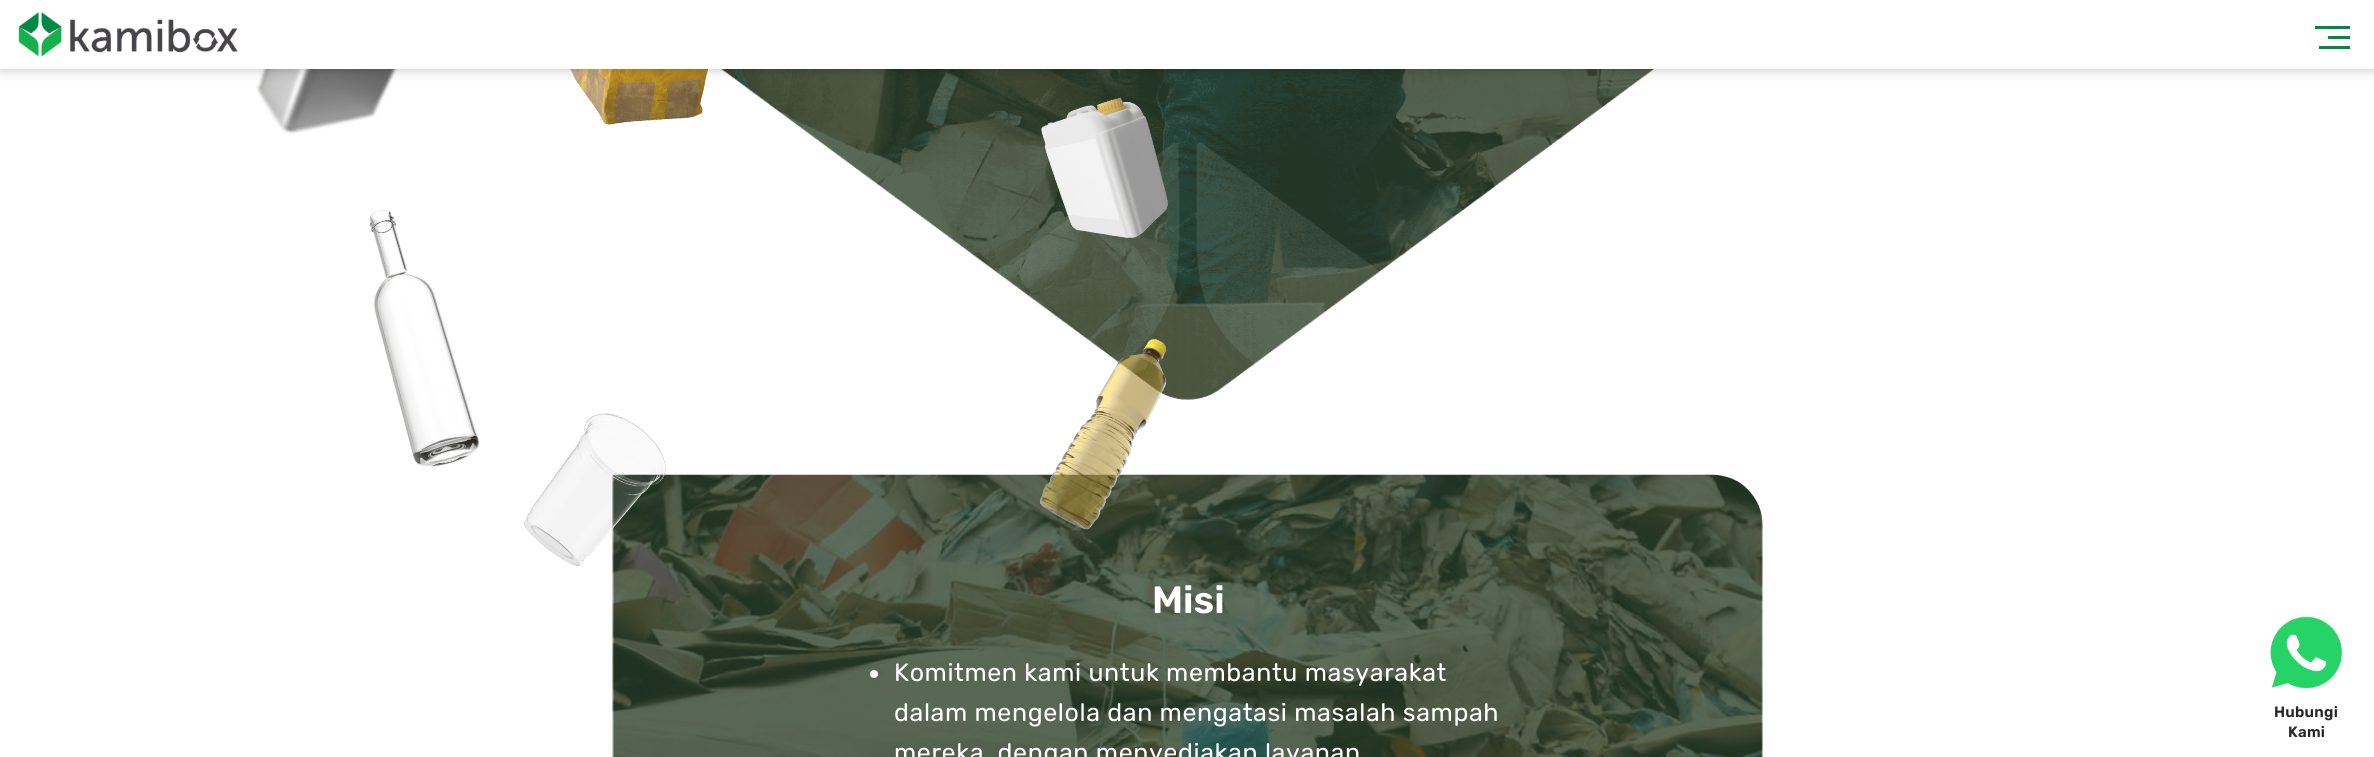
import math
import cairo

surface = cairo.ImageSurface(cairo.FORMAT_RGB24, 2374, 757)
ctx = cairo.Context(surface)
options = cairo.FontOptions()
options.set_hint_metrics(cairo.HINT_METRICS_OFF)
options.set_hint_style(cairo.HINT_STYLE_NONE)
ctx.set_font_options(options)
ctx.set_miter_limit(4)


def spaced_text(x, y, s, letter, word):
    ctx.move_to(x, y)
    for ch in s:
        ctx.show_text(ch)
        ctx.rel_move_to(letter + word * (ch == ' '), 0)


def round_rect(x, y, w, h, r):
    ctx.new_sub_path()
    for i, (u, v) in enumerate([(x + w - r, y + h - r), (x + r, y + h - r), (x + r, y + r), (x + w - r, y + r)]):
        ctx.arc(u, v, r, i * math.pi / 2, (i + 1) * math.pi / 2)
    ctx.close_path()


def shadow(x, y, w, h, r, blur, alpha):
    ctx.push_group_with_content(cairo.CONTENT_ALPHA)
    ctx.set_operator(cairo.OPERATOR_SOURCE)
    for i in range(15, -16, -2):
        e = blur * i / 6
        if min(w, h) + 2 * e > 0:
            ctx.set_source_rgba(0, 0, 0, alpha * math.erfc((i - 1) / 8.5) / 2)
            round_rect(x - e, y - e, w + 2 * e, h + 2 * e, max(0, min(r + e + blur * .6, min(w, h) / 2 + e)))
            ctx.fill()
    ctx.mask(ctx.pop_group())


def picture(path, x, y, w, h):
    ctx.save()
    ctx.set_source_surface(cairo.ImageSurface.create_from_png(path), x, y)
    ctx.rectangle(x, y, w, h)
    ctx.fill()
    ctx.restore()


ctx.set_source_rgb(1, 1, 1)
ctx.paint()
picture("img3.png", 720, 69, 935, 331)
picture("img4.png", 612, 474, 1151, 283)
picture("img2.png", 256, 69, 912, 497)
ctx.set_source_rgb(0, 0, 0)
shadow(0, 0, 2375, 69, 0, 6, 0.25)
ctx.set_source_rgb(1, 1, 1)
ctx.rectangle(0, 0, 2374, 69)
ctx.fill()
picture("img1.png", 18, 12, 220, 45)
ctx.set_source_rgb(0.012, 0.537, 0.271)
ctx.rectangle(2315, 26, 35, 3)
ctx.fill()
ctx.rectangle(2328, 36, 22, 3)
ctx.fill()
ctx.rectangle(2319, 46, 31, 3)
ctx.fill()
ctx.select_font_face("Rubik SemiBold")
ctx.set_font_size(38)
ctx.set_source_rgb(1, 1, 1)
ctx.move_to(1152, 613)
ctx.show_text("Misi")
ctx.new_path()
ctx.arc(874, 674, 4, 0, 2 * math.pi)
ctx.fill()
ctx.select_font_face("Rubik")
ctx.set_font_size(25)
spaced_text(894, 681, "Komitmen kami untuk membantu masyarakat", 0.6, 0)
spaced_text(894, 721, "dalam mengelola dan mengatasi masalah sampah", 0.6, 0)
spaced_text(894, 761, "mereka, dengan menyediakan layanan", 0.6, 0)
picture("img5.png", 2270, 616, 72, 73)
ctx.select_font_face("Rubik SemiBold")
ctx.set_font_size(15)
ctx.set_source_rgb(0.157, 0.157, 0.169)
spaced_text(2274, 717, "Hubungi", 0.25, 0)
spaced_text(2288, 737, "Kami", 0.25, 0)
surface.write_to_png("page.png")
